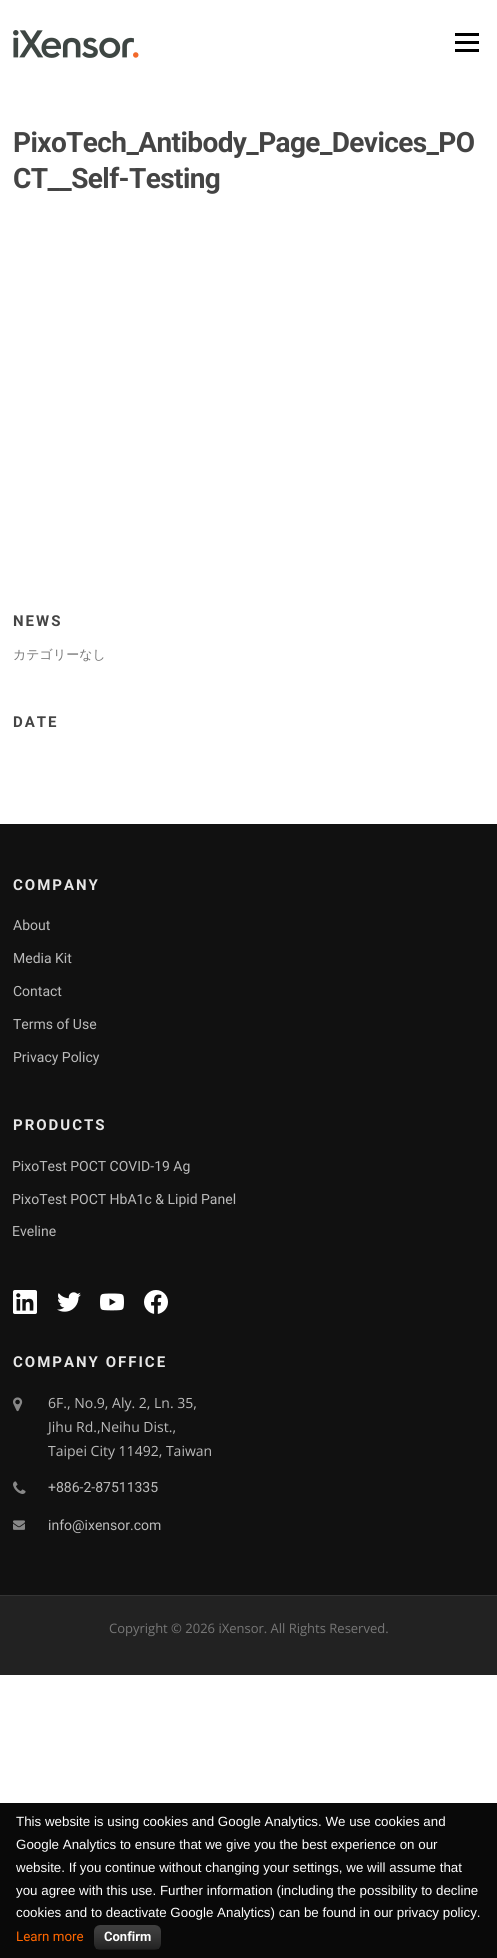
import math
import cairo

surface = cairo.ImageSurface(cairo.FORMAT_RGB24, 497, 1958)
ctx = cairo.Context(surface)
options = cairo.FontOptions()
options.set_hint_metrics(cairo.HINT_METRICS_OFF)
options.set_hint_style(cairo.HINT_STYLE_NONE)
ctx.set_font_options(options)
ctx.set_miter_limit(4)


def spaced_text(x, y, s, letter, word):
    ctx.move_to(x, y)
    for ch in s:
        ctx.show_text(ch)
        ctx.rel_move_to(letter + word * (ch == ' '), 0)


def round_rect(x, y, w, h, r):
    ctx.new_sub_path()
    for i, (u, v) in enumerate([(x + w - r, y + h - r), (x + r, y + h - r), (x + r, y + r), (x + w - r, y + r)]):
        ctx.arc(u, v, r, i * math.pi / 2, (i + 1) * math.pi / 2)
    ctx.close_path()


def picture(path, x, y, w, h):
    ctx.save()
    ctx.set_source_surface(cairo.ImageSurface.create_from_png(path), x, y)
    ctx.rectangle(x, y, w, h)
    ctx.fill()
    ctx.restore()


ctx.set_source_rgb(1, 1, 1)
ctx.paint()
picture("img1.png", 13, 30, 126, 28)
ctx.set_source_rgb(0, 0, 0)
ctx.rectangle(455, 41, 24, 3)
ctx.fill()
ctx.rectangle(455, 33, 24, 3)
ctx.fill()
ctx.rectangle(455, 49, 24, 3)
ctx.fill()
ctx.select_font_face("Roboto", cairo.FONT_SLANT_NORMAL, cairo.FONT_WEIGHT_BOLD)
ctx.set_font_size(28)
ctx.set_source_rgb(0.267, 0.267, 0.267)
spaced_text(13, 152, "PixoTech_Antibody_Page_Devices_PO", -0.6, 0)
spaced_text(13, 188, "CT__Self-Testing", -0.6, 0)
ctx.set_font_size(15)
spaced_text(13, 626, "NEWS", 2, 0)
ctx.select_font_face("WenQuanYi Zen Hei Medium")
ctx.set_font_size(13)
ctx.set_source_rgb(0.467, 0.467, 0.467)
ctx.move_to(13, 659)
ctx.show_text("カテゴリーなし")
ctx.select_font_face("Roboto", cairo.FONT_SLANT_NORMAL, cairo.FONT_WEIGHT_BOLD)
ctx.set_font_size(15)
ctx.set_source_rgb(0.267, 0.267, 0.267)
spaced_text(13, 727, "DATE", 2, 0)
ctx.set_source_rgb(0.067, 0.067, 0.067)
ctx.rectangle(0, 824, 497, 771)
ctx.fill()
ctx.set_source_rgb(0.906, 0.906, 0.906)
spaced_text(13, 890, "COMPANY", 2, 0)
ctx.select_font_face("Roboto")
ctx.set_font_size(14)
ctx.set_source_rgb(0.733, 0.733, 0.733)
ctx.move_to(13, 930)
ctx.show_text("About")
ctx.move_to(13, 963)
ctx.show_text("Media Kit")
ctx.move_to(13, 996)
ctx.show_text("Contact")
ctx.move_to(13, 1029)
ctx.show_text("Terms of Use")
ctx.move_to(13, 1062)
ctx.show_text("Privacy Policy")
ctx.select_font_face("Roboto", cairo.FONT_SLANT_NORMAL, cairo.FONT_WEIGHT_BOLD)
ctx.set_font_size(15)
ctx.set_source_rgb(0.906, 0.906, 0.906)
spaced_text(13, 1130, "PRODUCTS", 2, 0)
ctx.select_font_face("Roboto")
ctx.set_font_size(14)
ctx.set_source_rgb(0.733, 0.733, 0.733)
ctx.move_to(12, 1171)
ctx.show_text("PixoTest POCT COVID-19 Ag")
ctx.move_to(12, 1204)
ctx.show_text("PixoTest POCT HbA1c & Lipid Panel")
ctx.move_to(12, 1236)
ctx.show_text("Eveline")
picture("img2.png", 13, 1290, 24, 24)
picture("img3.png", 57, 1292, 24, 20)
picture("img4.png", 100, 1293, 24, 18)
picture("img5.png", 144, 1290, 24, 24)
ctx.select_font_face("Roboto", cairo.FONT_SLANT_NORMAL, cairo.FONT_WEIGHT_BOLD)
ctx.set_font_size(15)
ctx.set_source_rgb(0.906, 0.906, 0.906)
spaced_text(13, 1367, "COMPANY OFFICE", 2, 0)
picture("img6.png", 13, 1397, 10, 15)
ctx.select_font_face("Open Sans")
ctx.set_font_size(14)
ctx.set_source_rgb(0.733, 0.733, 0.733)
ctx.move_to(48, 1408)
ctx.show_text("6F., No.9, Aly. 2, Ln. 35,")
ctx.move_to(48, 1432)
ctx.show_text("Jihu Rd.,Neihu Dist.,")
ctx.move_to(48, 1456)
ctx.show_text("Taipei City 11492, Taiwan")
picture("img7.png", 13, 1481, 13, 13)
ctx.select_font_face("Roboto")
ctx.move_to(48, 1492)
ctx.show_text("+886-2-87511335")
picture("img8.png", 13, 1520, 12, 10)
ctx.move_to(48, 1530)
ctx.show_text("info@ixensor.com")
ctx.set_source_rgb(0.133, 0.133, 0.133)
ctx.rectangle(0, 1596, 497, 79)
ctx.fill()
ctx.set_source_rgb(0.2, 0.2, 0.2)
ctx.rectangle(0, 1595, 497, 1)
ctx.fill()
ctx.select_font_face("Open Sans")
ctx.set_font_size(13)
ctx.set_source_rgb(0.467, 0.467, 0.467)
ctx.move_to(109, 1633)
ctx.show_text("Copyright © 2026 iXensor. All Rights Reserved.")
ctx.set_source_rgb(0.039, 0.039, 0.039)
ctx.rectangle(0, 1803, 497, 155)
ctx.fill()
ctx.select_font_face("Liberation Sans")
ctx.set_font_size(13.35)
ctx.set_source_rgb(1, 1, 1)
ctx.move_to(16, 1826)
ctx.show_text("This website is using cookies and Google Analytics. We use cookies and")
ctx.move_to(16, 1849)
ctx.show_text("Google Analytics to ensure that we give you the best experience on our")
ctx.move_to(16, 1872)
ctx.show_text("website. If you continue without changing your settings, we will assume that")
ctx.move_to(16, 1895)
ctx.show_text("you agree with this use. Further information (including the possibility to decline")
ctx.move_to(16, 1917)
ctx.show_text("cookies and to deactivate Google Analytics) can be found in our privacy policy.")
ctx.select_font_face("Roboto")
ctx.set_source_rgb(1, 0.4, 0)
ctx.move_to(16, 1941)
ctx.show_text("Learn more")
ctx.set_source_rgb(0, 0, 0)
round_rect(94, 1925, 67, 25, 6)
ctx.fill()
picture("img9.png", 94, 1925, 67, 25)
ctx.set_source_rgba(0, 0, 0, 0.25)
ctx.rectangle(97, 1949, 61, 1)
ctx.fill()
ctx.select_font_face("Roboto", cairo.FONT_SLANT_NORMAL, cairo.FONT_WEIGHT_BOLD)
ctx.set_font_size(13)
ctx.set_source_rgb(1, 1, 1)
ctx.move_to(104, 1941)
ctx.show_text("Confirm")
surface.write_to_png("page.png")
